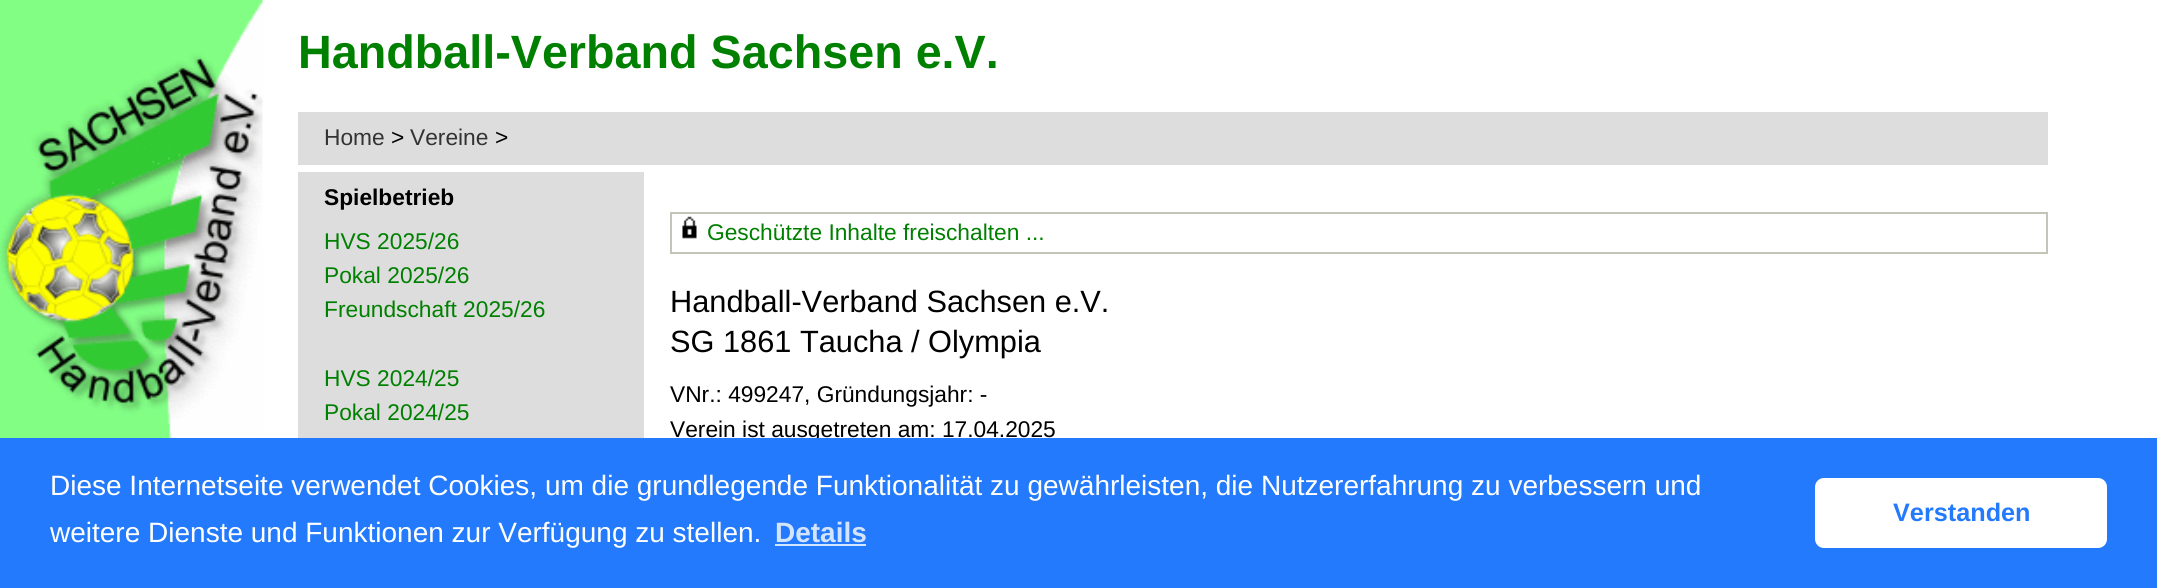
import math
import cairo

surface = cairo.ImageSurface(cairo.FORMAT_RGB24, 2157, 588)
ctx = cairo.Context(surface)
options = cairo.FontOptions()
options.set_hint_metrics(cairo.HINT_METRICS_OFF)
options.set_hint_style(cairo.HINT_STYLE_NONE)
ctx.set_font_options(options)
ctx.set_miter_limit(4)


def round_rect(x, y, w, h, r):
    ctx.new_sub_path()
    for i, (u, v) in enumerate([(x + w - r, y + h - r), (x + r, y + h - r), (x + r, y + r), (x + w - r, y + r)]):
        ctx.arc(u, v, r, i * math.pi / 2, (i + 1) * math.pi / 2)
    ctx.close_path()


def picture(path, x, y, w, h):
    ctx.save()
    ctx.set_source_surface(cairo.ImageSurface.create_from_png(path), x, y)
    ctx.rectangle(x, y, w, h)
    ctx.fill()
    ctx.restore()


ctx.set_source_rgb(1, 1, 1)
ctx.paint()
picture("img1.png", 0, 437, 172, 1)
picture("img2.png", 0, 0, 263, 437)
ctx.select_font_face("Liberation Sans", cairo.FONT_SLANT_NORMAL, cairo.FONT_WEIGHT_BOLD)
ctx.set_font_size(46.7)
ctx.set_source_rgb(0, 0.502, 0)
ctx.move_to(298, 68)
ctx.show_text("Handball-Verband Sachsen e.V.")
ctx.set_source_rgb(0.867, 0.867, 0.867)
ctx.rectangle(298, 112, 1750, 53)
ctx.fill()
ctx.select_font_face("Liberation Sans")
ctx.set_font_size(22.75)
ctx.set_source_rgb(0.2, 0.2, 0.2)
ctx.move_to(324, 145)
ctx.show_text("Home")
ctx.set_source_rgb(0, 0, 0)
ctx.move_to(391, 145)
ctx.show_text(">")
ctx.set_source_rgb(0.2, 0.2, 0.2)
ctx.move_to(410, 145)
ctx.show_text("Vereine")
ctx.set_source_rgb(0, 0, 0)
ctx.move_to(495, 145)
ctx.show_text(">")
ctx.set_source_rgb(0.867, 0.867, 0.867)
ctx.rectangle(298, 172, 346, 266)
ctx.fill()
ctx.select_font_face("Liberation Sans", cairo.FONT_SLANT_NORMAL, cairo.FONT_WEIGHT_BOLD)
ctx.set_source_rgb(0, 0, 0)
ctx.move_to(324, 205)
ctx.show_text("Spielbetrieb")
ctx.select_font_face("Liberation Sans")
ctx.set_source_rgb(0, 0.502, 0)
ctx.move_to(324, 249)
ctx.show_text("HVS 2025/26")
ctx.move_to(324, 283)
ctx.show_text("Pokal 2025/26")
ctx.move_to(324, 317)
ctx.show_text("Freundschaft 2025/26")
ctx.move_to(324, 386)
ctx.show_text("HVS 2024/25")
ctx.move_to(324, 420)
ctx.show_text("Pokal 2024/25")
ctx.rectangle(671, 213, 1376, 40)
ctx.set_source_rgb(0.773, 0.769, 0.725)
ctx.stroke()
picture("img3.png", 682, 216, 15, 23)
ctx.set_source_rgb(0, 0.502, 0)
ctx.move_to(707, 240)
ctx.show_text("Geschützte Inhalte freischalten ...")
ctx.set_font_size(30.75)
ctx.set_source_rgb(0, 0, 0)
ctx.move_to(670, 312)
ctx.show_text("Handball-Verband Sachsen e.V.")
ctx.move_to(670, 352)
ctx.show_text("SG 1861 Taucha / Olympia")
ctx.set_font_size(22.75)
ctx.move_to(670, 402)
ctx.show_text("VNr.: 499247, Gründungsjahr: -")
ctx.move_to(670, 437)
ctx.show_text("Verein ist ausgetreten am: 17.04.2025")
ctx.set_source_rgb(0.137, 0.478, 0.988)
ctx.rectangle(0, 438, 2157, 150)
ctx.fill()
ctx.set_font_size(28)
ctx.set_source_rgb(1, 1, 1)
ctx.move_to(50, 495)
ctx.show_text("Diese Internetseite verwendet Cookies, um die grundlegende Funktionalität zu gewährleisten, die Nutzererfahrung zu verbessern und")
ctx.move_to(50, 542)
ctx.show_text("weitere Dienste und Funktionen zur Verfügung zu stellen.")
ctx.select_font_face("Liberation Sans", cairo.FONT_SLANT_NORMAL, cairo.FONT_WEIGHT_BOLD)
ctx.set_source_rgb(0.827, 0.894, 0.996)
ctx.move_to(775, 542)
ctx.show_text("Details")
ctx.rectangle(775, 544, 91, 2)
ctx.fill()
ctx.set_source_rgb(1, 1, 1)
round_rect(1815, 478, 292, 70, 9)
ctx.fill()
ctx.set_font_size(25.25)
ctx.set_source_rgb(0.137, 0.478, 0.988)
ctx.move_to(1893, 521)
ctx.show_text("Verstanden")
surface.write_to_png("page.png")
